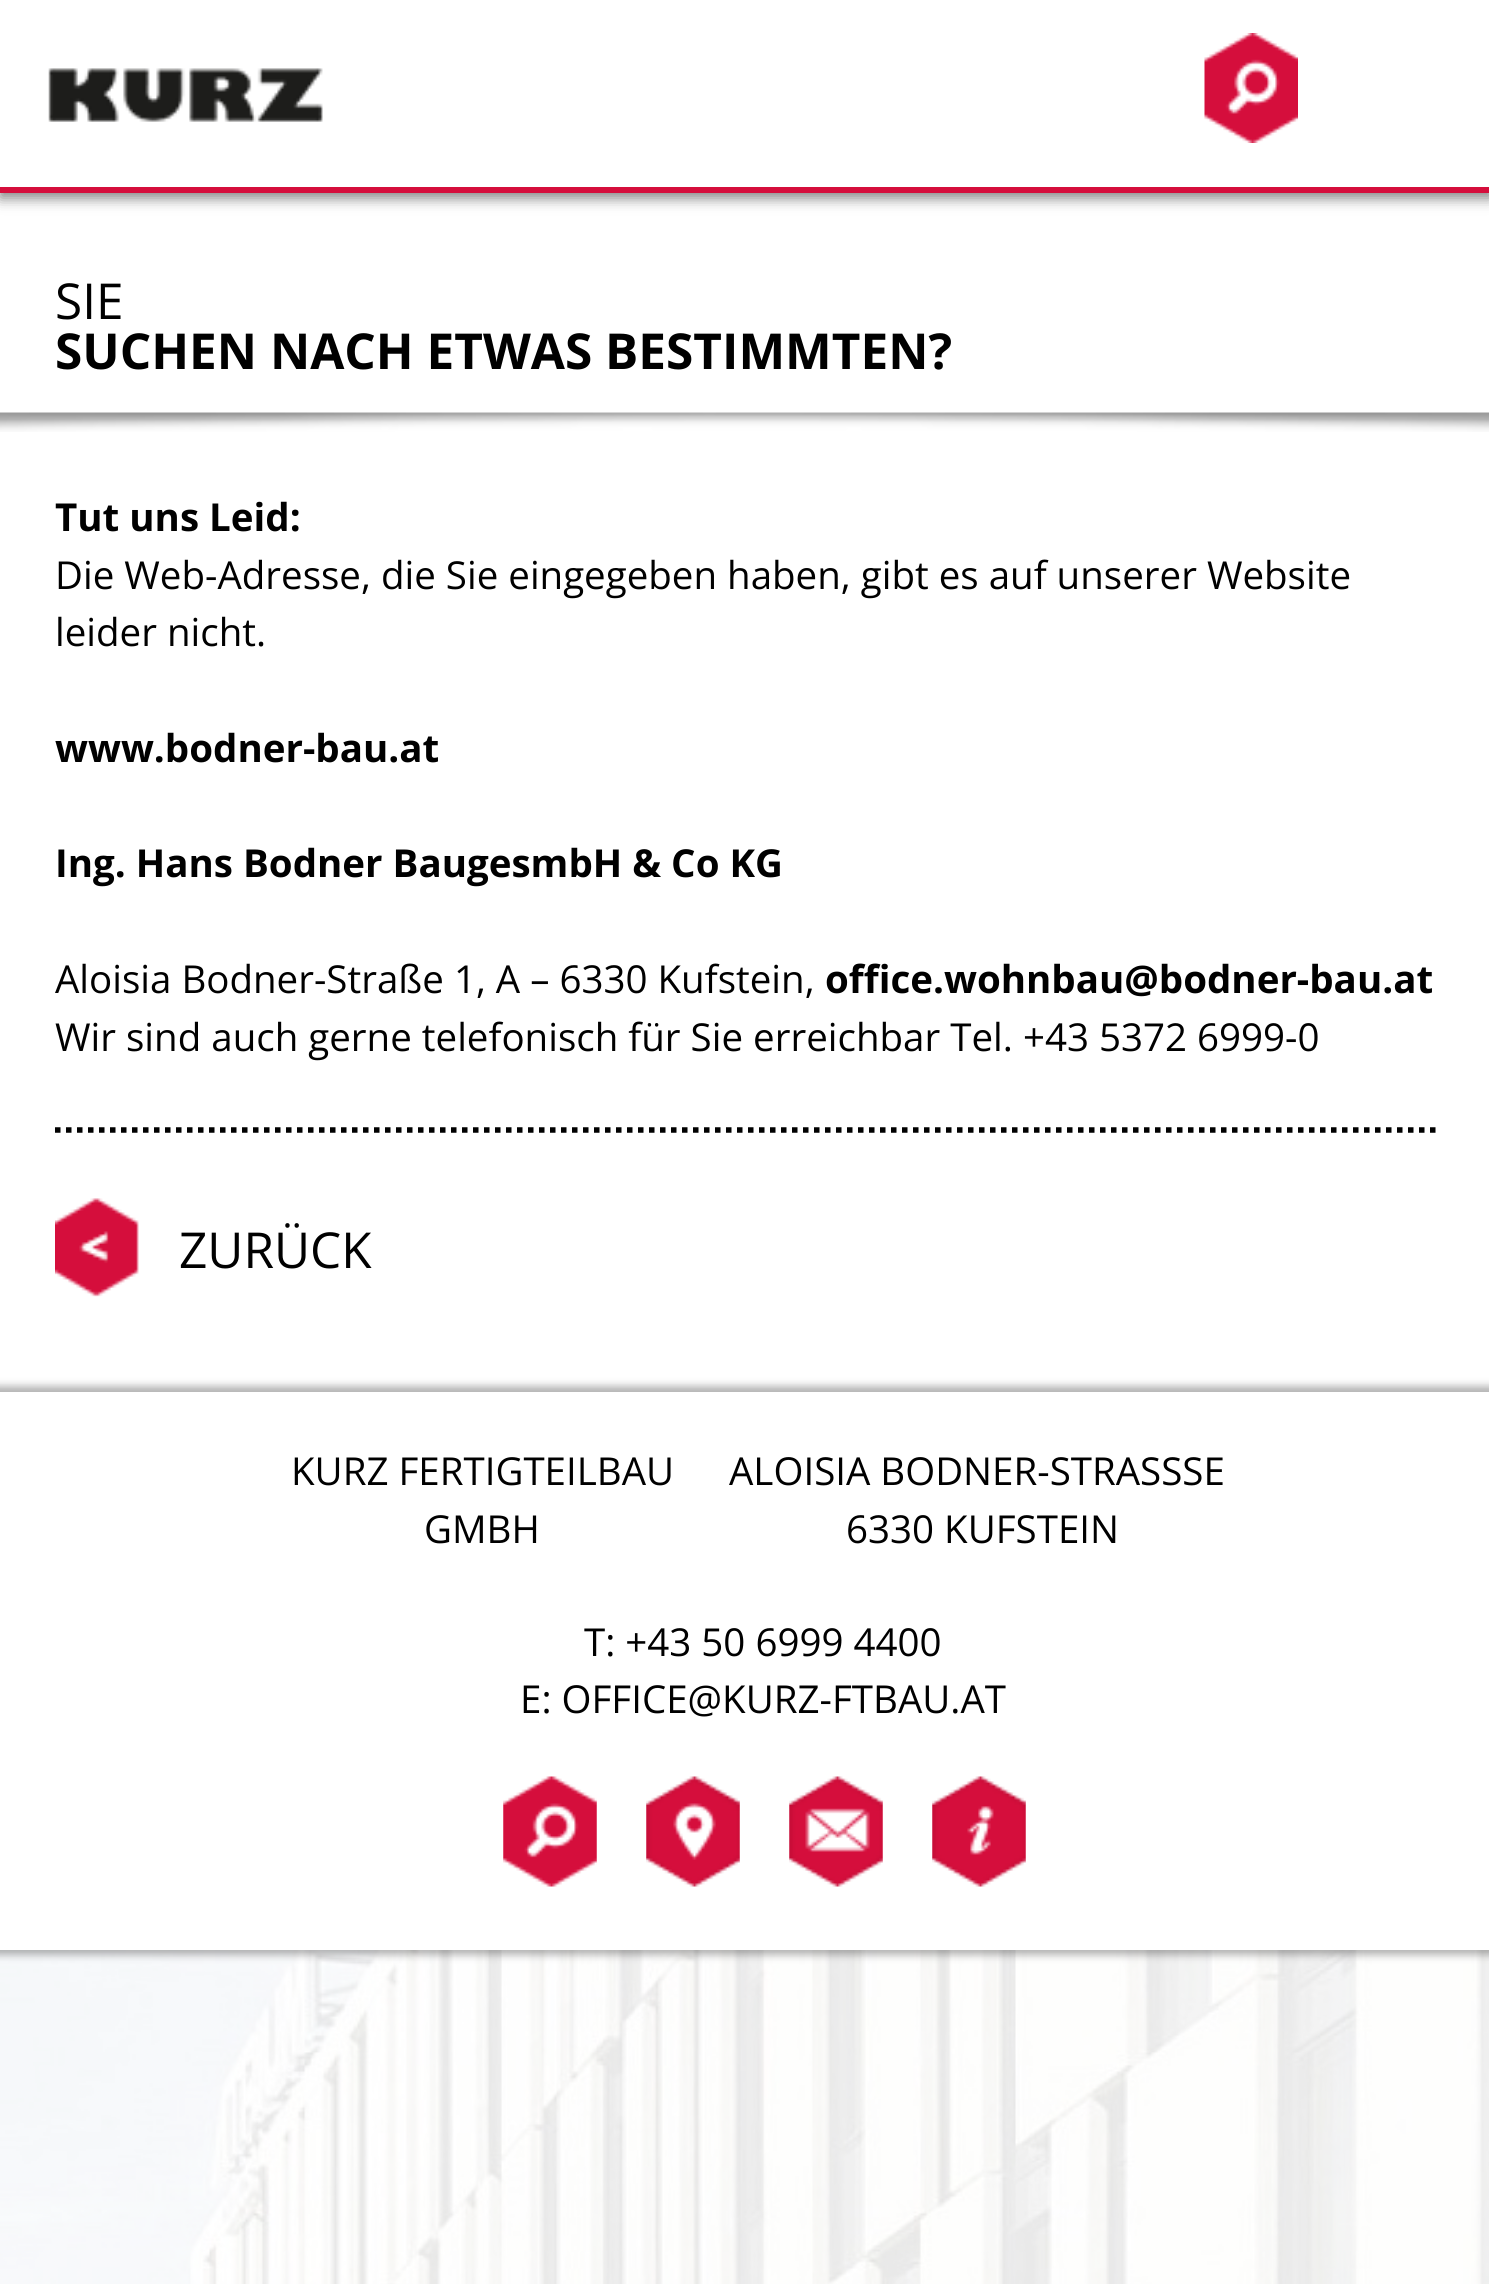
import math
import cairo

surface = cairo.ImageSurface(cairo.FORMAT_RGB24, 1489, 2284)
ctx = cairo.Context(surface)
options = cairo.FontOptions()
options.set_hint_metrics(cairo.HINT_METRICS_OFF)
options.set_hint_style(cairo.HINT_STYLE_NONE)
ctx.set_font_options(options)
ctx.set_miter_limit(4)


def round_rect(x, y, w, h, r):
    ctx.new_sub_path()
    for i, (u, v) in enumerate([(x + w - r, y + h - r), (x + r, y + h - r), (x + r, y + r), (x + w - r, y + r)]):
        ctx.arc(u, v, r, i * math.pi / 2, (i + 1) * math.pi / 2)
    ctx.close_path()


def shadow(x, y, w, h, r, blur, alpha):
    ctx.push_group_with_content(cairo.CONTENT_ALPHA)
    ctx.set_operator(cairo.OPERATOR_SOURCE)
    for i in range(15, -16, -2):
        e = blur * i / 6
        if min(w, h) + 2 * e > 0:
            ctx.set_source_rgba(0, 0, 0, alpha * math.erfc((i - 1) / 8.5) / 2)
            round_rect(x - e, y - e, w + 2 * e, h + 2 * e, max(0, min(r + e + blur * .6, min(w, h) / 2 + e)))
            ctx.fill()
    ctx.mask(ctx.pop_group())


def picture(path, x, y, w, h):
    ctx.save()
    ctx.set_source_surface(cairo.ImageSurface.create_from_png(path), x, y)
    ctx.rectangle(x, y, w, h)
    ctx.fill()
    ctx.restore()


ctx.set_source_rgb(1, 1, 1)
ctx.paint()
ctx.set_source_rgb(0, 0, 0)
shadow(0, 6, 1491, 192, 0, 7, 0.5)
ctx.set_source_rgb(1, 1, 1)
ctx.rectangle(0, 0, 1489, 187)
ctx.fill()
ctx.set_source_rgb(0.835, 0.055, 0.235)
ctx.rectangle(0, 187, 1489, 6)
ctx.fill()
picture("img1.png", 48, 68, 275, 54)
picture("img2.png", 1204, 33, 94, 110)
picture("img3.png", 0, 412, 1489, 20)
ctx.select_font_face("Open Sans")
ctx.set_font_size(49.5)
ctx.set_source_rgb(0, 0, 0)
ctx.move_to(55, 319)
ctx.show_text("SIE")
ctx.select_font_face("Open Sans", cairo.FONT_SLANT_NORMAL, cairo.FONT_WEIGHT_BOLD)
ctx.move_to(55, 369)
ctx.show_text("SUCHEN NACH ETWAS BESTIMMTEN?")
ctx.set_font_size(38.5)
ctx.move_to(55, 531)
ctx.show_text("Tut uns Leid:")
ctx.select_font_face("Open Sans")
ctx.move_to(55, 589)
ctx.show_text("Die Web-Adresse, die Sie eingegeben haben, gibt es auf unserer Website")
ctx.move_to(55, 646)
ctx.show_text("leider nicht.")
ctx.select_font_face("Open Sans", cairo.FONT_SLANT_NORMAL, cairo.FONT_WEIGHT_BOLD)
ctx.move_to(55, 762)
ctx.show_text("www.bodner-bau.at")
ctx.move_to(55, 877)
ctx.show_text("Ing. Hans Bodner BaugesmbH & Co KG")
ctx.select_font_face("Open Sans")
ctx.move_to(55, 993)
ctx.show_text("Aloisia Bodner-Straße 1, A – 6330 Kufstein,")
ctx.select_font_face("Open Sans", cairo.FONT_SLANT_NORMAL, cairo.FONT_WEIGHT_BOLD)
ctx.move_to(825, 993)
ctx.show_text("office.wohnbau@bodner-bau.at")
ctx.select_font_face("Open Sans")
ctx.move_to(55, 1051)
ctx.show_text("Wir sind auch gerne telefonisch für Sie erreichbar Tel. +43 5372 6999-0")
ctx.new_path()
ctx.move_to(55, 1130)
ctx.line_to(1435.5, 1130)
ctx.set_line_width(5.5)
ctx.set_dash([5.5, 5.5])
ctx.stroke()
picture("img4.png", 55, 1198, 84, 99)
ctx.set_font_size(49.5)
ctx.move_to(179, 1268)
ctx.show_text("ZURÜCK")
picture("img9.png", 0, 1950, 1489, 334)
ctx.set_source_rgb(0, 0, 0)
shadow(-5, 1386, 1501, 569, 0, 4, 0.3)
ctx.set_source_rgb(1, 1, 1)
ctx.rectangle(0, 1392, 1489, 558)
ctx.fill()
ctx.set_font_size(38.5)
ctx.set_source_rgb(0, 0, 0)
ctx.move_to(291, 1485)
ctx.show_text("KURZ FERTIGTEILBAU")
ctx.move_to(424, 1543)
ctx.show_text("GMBH")
ctx.move_to(729, 1485)
ctx.show_text("ALOISIA BODNER-STRASSSE")
ctx.move_to(846, 1543)
ctx.show_text("6330 KUFSTEIN")
ctx.move_to(584, 1656)
ctx.show_text("T: +43 50 6999 4400")
ctx.move_to(520, 1713)
ctx.show_text("E: OFFICE@KURZ-FTBAU.AT")
picture("img5.png", 503, 1776, 94, 111)
picture("img6.png", 646, 1776, 94, 111)
picture("img7.png", 789, 1776, 94, 111)
picture("img8.png", 932, 1776, 94, 111)
surface.write_to_png("page.png")
